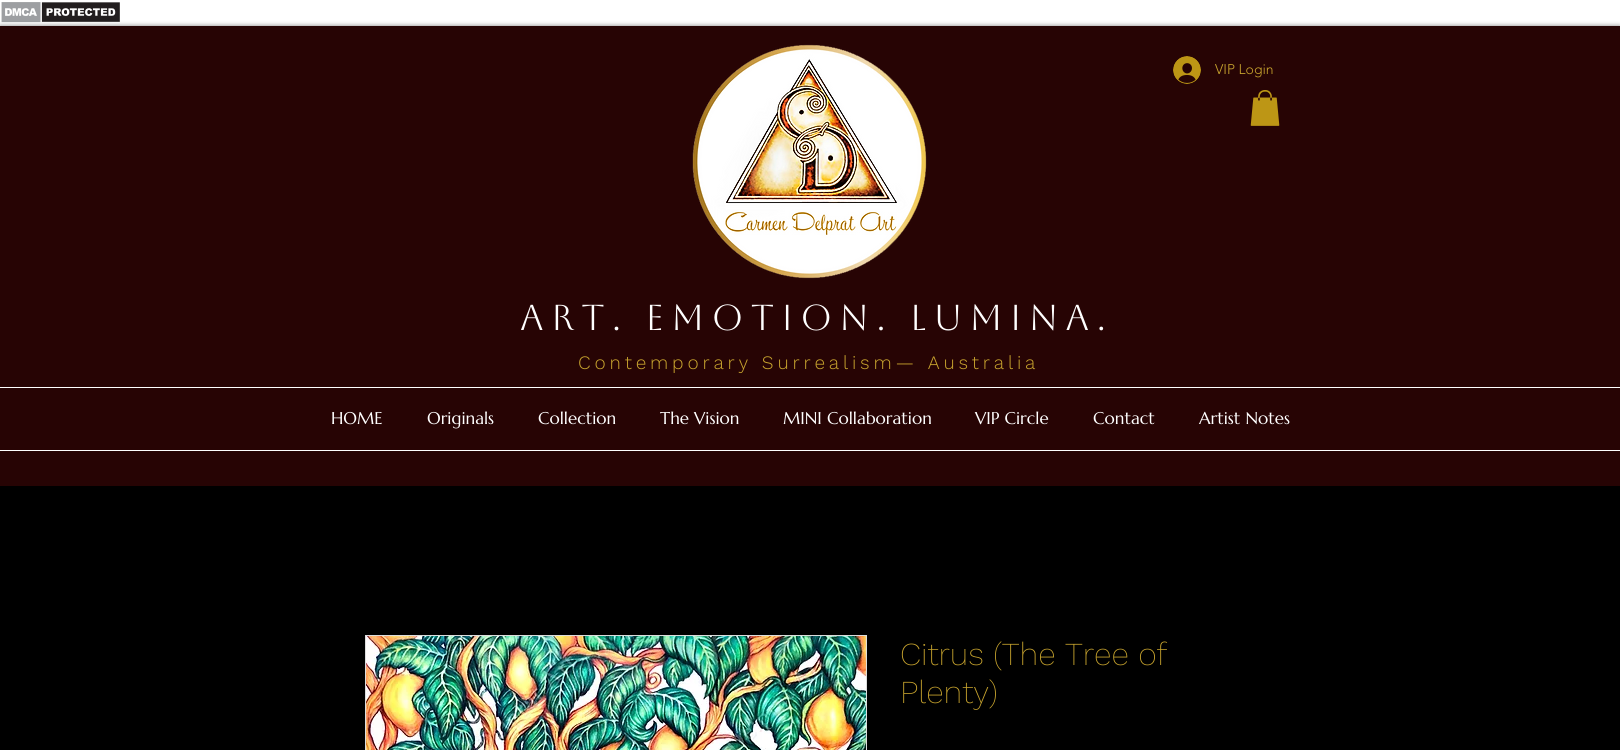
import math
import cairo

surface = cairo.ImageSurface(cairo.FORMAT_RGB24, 1620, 750)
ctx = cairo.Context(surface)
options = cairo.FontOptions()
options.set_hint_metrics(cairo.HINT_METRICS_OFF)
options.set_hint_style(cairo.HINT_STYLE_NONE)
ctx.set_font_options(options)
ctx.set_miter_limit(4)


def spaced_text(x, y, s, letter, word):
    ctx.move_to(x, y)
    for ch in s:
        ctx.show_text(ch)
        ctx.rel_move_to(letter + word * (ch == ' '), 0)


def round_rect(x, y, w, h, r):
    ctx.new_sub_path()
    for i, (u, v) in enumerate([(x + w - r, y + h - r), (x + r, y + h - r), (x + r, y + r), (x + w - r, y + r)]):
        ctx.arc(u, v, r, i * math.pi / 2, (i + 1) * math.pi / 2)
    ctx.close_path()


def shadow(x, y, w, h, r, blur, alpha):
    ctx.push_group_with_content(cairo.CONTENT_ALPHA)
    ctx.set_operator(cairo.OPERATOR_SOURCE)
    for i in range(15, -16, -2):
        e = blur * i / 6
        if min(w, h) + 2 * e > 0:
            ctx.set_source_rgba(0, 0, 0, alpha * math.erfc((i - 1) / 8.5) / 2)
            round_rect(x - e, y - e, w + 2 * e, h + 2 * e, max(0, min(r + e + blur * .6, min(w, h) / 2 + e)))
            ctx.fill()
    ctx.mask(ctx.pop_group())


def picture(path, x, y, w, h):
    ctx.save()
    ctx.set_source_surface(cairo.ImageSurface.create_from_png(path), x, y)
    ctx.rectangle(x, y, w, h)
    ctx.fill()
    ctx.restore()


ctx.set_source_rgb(1, 1, 1)
ctx.paint()
picture("img1.png", 1, 2, 119, 21)
ctx.set_source_rgb(0, 0, 0)
ctx.rectangle(0, 486, 1620, 264)
ctx.fill()
ctx.set_source_rgb(0, 0, 0)
shadow(0, 26, 1620, 460, 0, 2.5, 0.5)
ctx.set_source_rgb(0.153, 0.016, 0.016)
ctx.rectangle(0, 26, 1620, 460)
ctx.fill()
picture("img2.png", 692, 44, 235, 235)
picture("img3.png", 1173, 56, 28, 28)
ctx.select_font_face("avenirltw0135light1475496 Light")
ctx.set_font_size(14)
ctx.set_source_rgb(0.788, 0.647, 0.18)
ctx.move_to(1215, 74)
ctx.show_text("VIP Login")
picture("img4.png", 1250, 90, 30, 36)
ctx.select_font_face("Aboreto")
ctx.set_font_size(36)
ctx.set_source_rgb(1, 1, 1)
spaced_text(520, 330, "Art. Emotion. LUMINA.", 7.2, 0)
ctx.select_font_face("Work Sans Light")
ctx.set_font_size(19)
ctx.set_source_rgb(0.788, 0.647, 0.18)
spaced_text(578, 369, "Contemporary Surrealism— Australia", 3.8, 0)
ctx.set_source_rgb(1, 1, 1)
ctx.rectangle(0, 387, 1620, 1)
ctx.fill()
ctx.select_font_face("Marcellus")
ctx.set_font_size(17)
ctx.move_to(331, 424)
ctx.show_text("HOME")
ctx.move_to(427, 424)
ctx.show_text("Originals")
ctx.move_to(538, 424)
ctx.show_text("Collection")
ctx.move_to(660, 424)
ctx.show_text("The Vision")
ctx.move_to(783, 424)
ctx.show_text("MINI Collaboration")
ctx.move_to(975, 424)
ctx.show_text("VIP Circle")
ctx.move_to(1093, 424)
ctx.show_text("Contact")
ctx.move_to(1199, 424)
ctx.show_text("Artist Notes")
ctx.rectangle(0, 450, 1620, 1)
ctx.fill()
ctx.rectangle(365.5, 635.5, 501, 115)
ctx.set_source_rgb(0.867, 0.867, 0.867)
ctx.set_line_width(1)
ctx.stroke()
picture("img5.png", 366, 636, 500, 114)
ctx.select_font_face("Work Sans ExtraLight")
ctx.set_font_size(32)
ctx.set_source_rgb(0.788, 0.647, 0.18)
ctx.move_to(900, 665)
ctx.show_text("Citrus (The Tree of")
ctx.move_to(900, 703)
ctx.show_text("Plenty)")
surface.write_to_png("page.png")
